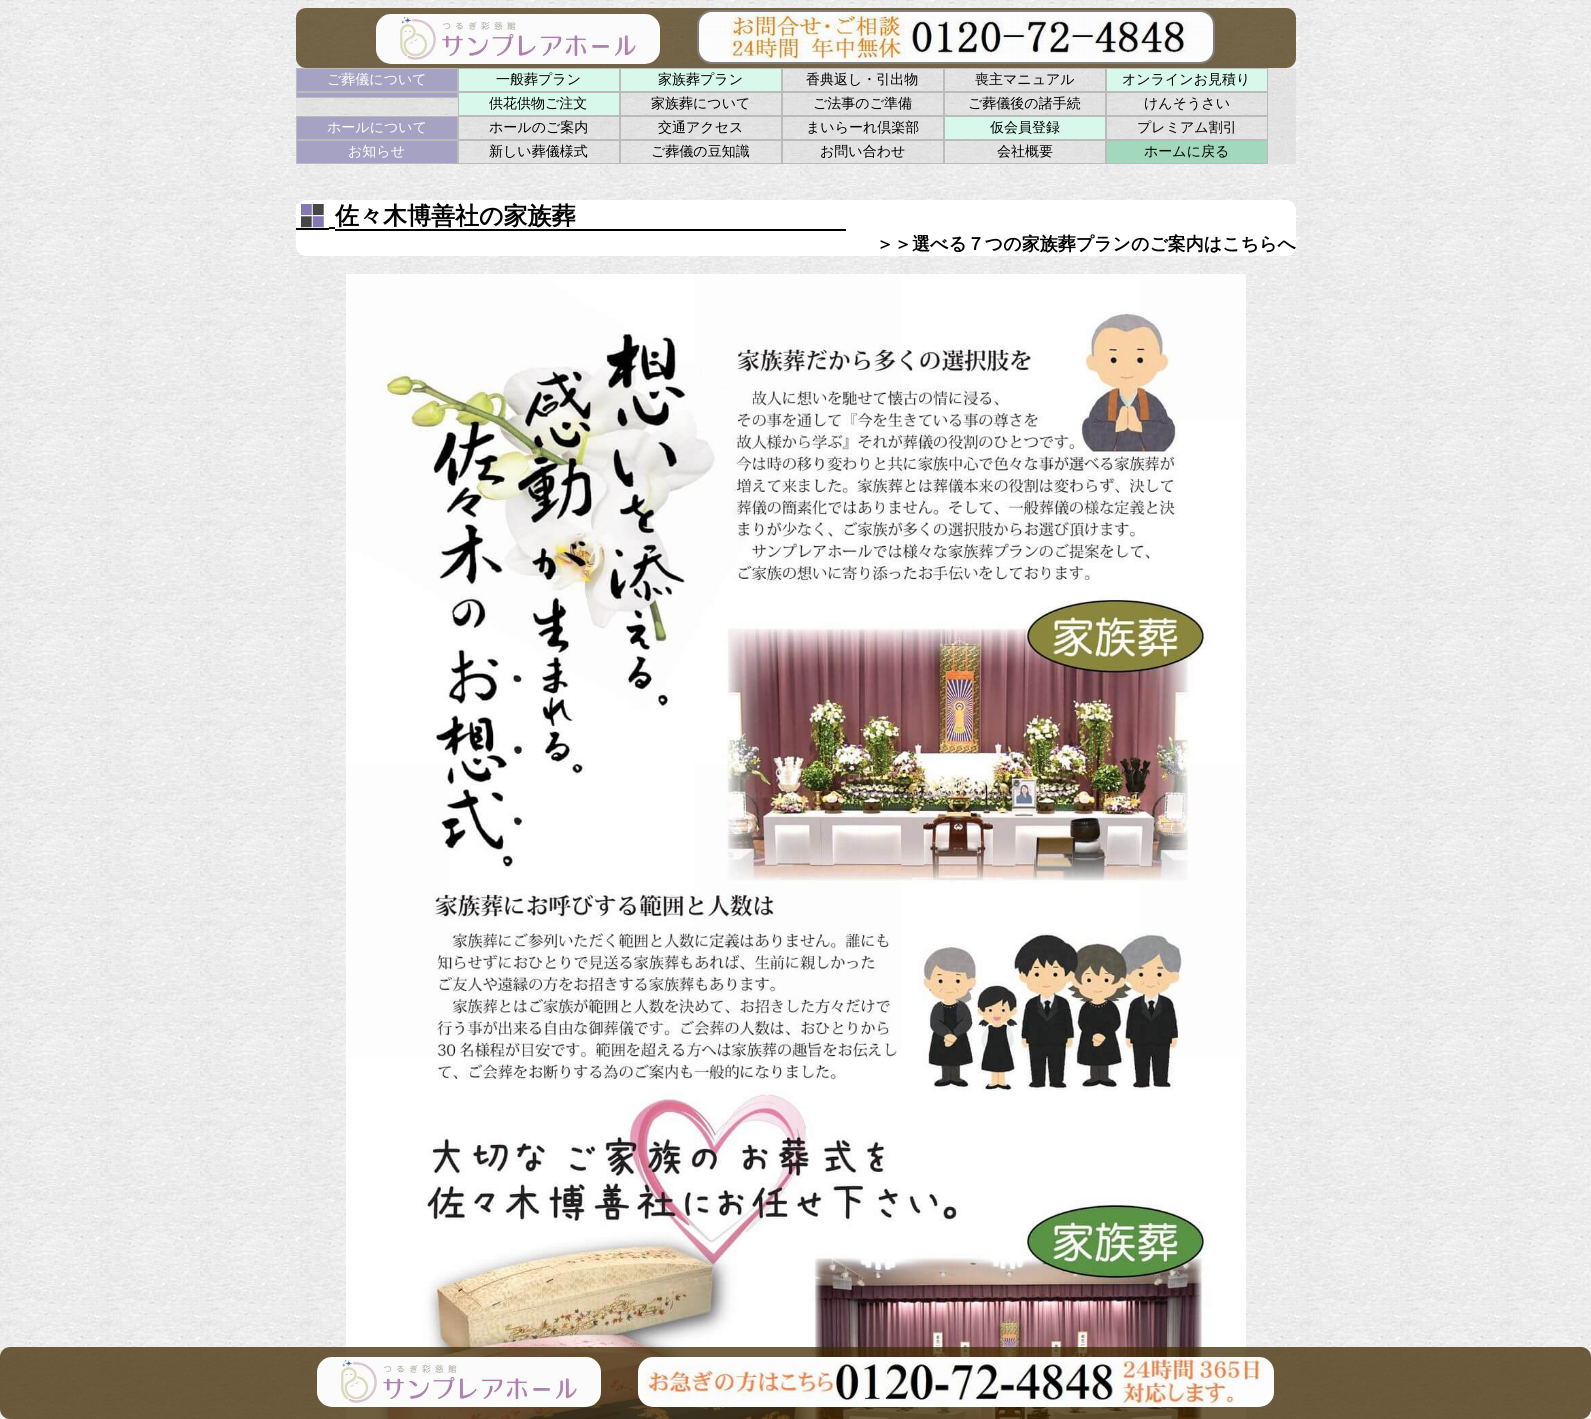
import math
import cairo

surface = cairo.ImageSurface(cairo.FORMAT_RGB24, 1591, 1419)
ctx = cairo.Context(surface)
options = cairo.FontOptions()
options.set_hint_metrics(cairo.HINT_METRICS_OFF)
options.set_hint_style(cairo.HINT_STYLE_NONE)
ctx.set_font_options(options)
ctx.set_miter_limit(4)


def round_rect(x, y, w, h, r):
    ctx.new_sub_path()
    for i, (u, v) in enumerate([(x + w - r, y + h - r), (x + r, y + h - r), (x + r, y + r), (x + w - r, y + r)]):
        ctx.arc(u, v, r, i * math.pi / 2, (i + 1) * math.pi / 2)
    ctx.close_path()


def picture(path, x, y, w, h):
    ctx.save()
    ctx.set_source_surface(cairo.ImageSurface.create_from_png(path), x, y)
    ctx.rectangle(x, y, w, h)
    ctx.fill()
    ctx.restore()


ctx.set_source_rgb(1, 1, 1)
ctx.paint()
picture("img1.png", 0, 0, 1591, 1419)
ctx.set_source_rgba(0.247, 0.161, 0, 0.7)
round_rect(296, 8, 1000, 60, 10)
ctx.fill()
round_rect(698, 11, 516, 52, 14)
ctx.set_source_rgb(0.502, 0.502, 0.502)
ctx.stroke()
picture("img2.png", 376, 14, 284, 50)
picture("img3.png", 699, 12, 514, 50)
ctx.set_source_rgba(0.827, 0.827, 0.827, 0.4)
ctx.rectangle(783, 68, 513, 24)
ctx.fill()
ctx.rectangle(296.5, 68.5, 161, 23)
ctx.set_source_rgb(0.733, 0.733, 0.733)
ctx.set_line_width(1)
ctx.stroke()
ctx.set_source_rgb(0.647, 0.635, 0.765)
ctx.rectangle(297, 69, 160, 22)
ctx.fill()
ctx.select_font_face("WenQuanYi Zen Hei Medium")
ctx.set_font_size(14)
ctx.set_source_rgb(1, 1, 1)
ctx.move_to(327, 84)
ctx.show_text("ご葬儀について")
ctx.rectangle(458.5, 68.5, 161, 23)
ctx.set_source_rgb(0.733, 0.733, 0.733)
ctx.stroke()
ctx.set_source_rgb(0.843, 0.969, 0.918)
ctx.rectangle(459, 69, 160, 22)
ctx.fill()
ctx.set_source_rgb(0, 0, 0)
ctx.move_to(496, 84)
ctx.show_text("一般葬プラン")
ctx.rectangle(620.5, 68.5, 161, 23)
ctx.set_source_rgb(0.733, 0.733, 0.733)
ctx.stroke()
ctx.set_source_rgb(0.843, 0.969, 0.918)
ctx.rectangle(621, 69, 160, 22)
ctx.fill()
ctx.set_source_rgb(0, 0, 0)
ctx.move_to(658, 84)
ctx.show_text("家族葬プラン")
ctx.rectangle(782.5, 68.5, 161, 23)
ctx.set_source_rgb(0.733, 0.733, 0.733)
ctx.stroke()
ctx.set_source_rgb(0, 0, 0)
ctx.move_to(806, 84)
ctx.show_text("香典返し・引出物")
ctx.rectangle(944.5, 68.5, 161, 23)
ctx.set_source_rgb(0.733, 0.733, 0.733)
ctx.stroke()
ctx.set_source_rgb(0, 0, 0)
ctx.move_to(975, 84)
ctx.show_text("喪主マニュアル")
ctx.rectangle(1106.5, 68.5, 161, 23)
ctx.set_source_rgb(0.733, 0.733, 0.733)
ctx.stroke()
ctx.set_source_rgb(0.843, 0.969, 0.918)
ctx.rectangle(1107, 69, 160, 22)
ctx.fill()
ctx.set_source_rgb(0, 0, 0)
ctx.move_to(1122, 84)
ctx.show_text("オンラインお見積り")
ctx.set_source_rgba(0.827, 0.827, 0.827, 0.4)
ctx.rectangle(296, 92, 1000, 24)
ctx.fill()
ctx.rectangle(296.5, 92.5, 161, 5)
ctx.set_source_rgb(0.733, 0.733, 0.733)
ctx.stroke()
ctx.set_source_rgb(0.647, 0.635, 0.765)
ctx.rectangle(297, 93, 160, 4)
ctx.fill()
ctx.rectangle(458.5, 92.5, 161, 23)
ctx.set_source_rgb(0.733, 0.733, 0.733)
ctx.stroke()
ctx.set_source_rgb(0.843, 0.969, 0.918)
ctx.rectangle(459, 93, 160, 22)
ctx.fill()
ctx.set_source_rgb(0, 0, 0)
ctx.move_to(489, 108)
ctx.show_text("供花供物ご注文")
ctx.rectangle(620.5, 92.5, 161, 23)
ctx.set_source_rgb(0.733, 0.733, 0.733)
ctx.stroke()
ctx.set_source_rgb(0, 0, 0)
ctx.move_to(651, 108)
ctx.show_text("家族葬について")
ctx.rectangle(782.5, 92.5, 161, 23)
ctx.set_source_rgb(0.733, 0.733, 0.733)
ctx.stroke()
ctx.set_source_rgb(0, 0, 0)
ctx.move_to(813, 108)
ctx.show_text("ご法事のご準備")
ctx.rectangle(944.5, 92.5, 161, 23)
ctx.set_source_rgb(0.733, 0.733, 0.733)
ctx.stroke()
ctx.set_source_rgb(0, 0, 0)
ctx.move_to(968, 108)
ctx.show_text("ご葬儀後の諸手続")
ctx.rectangle(1106.5, 92.5, 161, 23)
ctx.set_source_rgb(0.733, 0.733, 0.733)
ctx.stroke()
ctx.set_source_rgb(0, 0, 0)
ctx.move_to(1144, 108)
ctx.show_text("けんそうさい")
ctx.set_source_rgba(0.827, 0.827, 0.827, 0.4)
ctx.rectangle(459, 116, 837, 24)
ctx.fill()
ctx.rectangle(296.5, 116.5, 161, 23)
ctx.set_source_rgb(0.733, 0.733, 0.733)
ctx.stroke()
ctx.set_source_rgb(0.647, 0.635, 0.765)
ctx.rectangle(297, 117, 160, 22)
ctx.fill()
ctx.set_source_rgb(1, 1, 1)
ctx.move_to(327, 132)
ctx.show_text("ホールについて")
ctx.rectangle(458.5, 116.5, 161, 23)
ctx.set_source_rgb(0.733, 0.733, 0.733)
ctx.stroke()
ctx.set_source_rgb(0, 0, 0)
ctx.move_to(489, 132)
ctx.show_text("ホールのご案内")
ctx.rectangle(620.5, 116.5, 161, 23)
ctx.set_source_rgb(0.733, 0.733, 0.733)
ctx.stroke()
ctx.set_source_rgb(0, 0, 0)
ctx.move_to(658, 132)
ctx.show_text("交通アクセス")
ctx.rectangle(782.5, 116.5, 161, 23)
ctx.set_source_rgb(0.733, 0.733, 0.733)
ctx.stroke()
ctx.set_source_rgb(0, 0, 0)
ctx.move_to(806, 132)
ctx.show_text("まいらーれ倶楽部")
ctx.rectangle(944.5, 116.5, 161, 23)
ctx.set_source_rgb(0.733, 0.733, 0.733)
ctx.stroke()
ctx.set_source_rgb(0.843, 0.969, 0.918)
ctx.rectangle(945, 117, 160, 22)
ctx.fill()
ctx.set_source_rgb(0, 0, 0)
ctx.move_to(990, 132)
ctx.show_text("仮会員登録")
ctx.rectangle(1106.5, 116.5, 161, 23)
ctx.set_source_rgb(0.733, 0.733, 0.733)
ctx.stroke()
ctx.set_source_rgb(0, 0, 0)
ctx.move_to(1137, 132)
ctx.show_text("プレミアム割引")
ctx.set_source_rgba(0.827, 0.827, 0.827, 0.4)
ctx.rectangle(459, 140, 837, 24)
ctx.fill()
ctx.rectangle(296.5, 140.5, 161, 23)
ctx.set_source_rgb(0.733, 0.733, 0.733)
ctx.stroke()
ctx.set_source_rgb(0.647, 0.635, 0.765)
ctx.rectangle(297, 141, 160, 22)
ctx.fill()
ctx.set_source_rgb(1, 1, 1)
ctx.move_to(348, 156)
ctx.show_text("お知らせ")
ctx.rectangle(458.5, 140.5, 161, 23)
ctx.set_source_rgb(0.733, 0.733, 0.733)
ctx.stroke()
ctx.set_source_rgb(0, 0, 0)
ctx.move_to(489, 156)
ctx.show_text("新しい葬儀様式")
ctx.rectangle(620.5, 140.5, 161, 23)
ctx.set_source_rgb(0.733, 0.733, 0.733)
ctx.stroke()
ctx.set_source_rgb(0, 0, 0)
ctx.move_to(651, 156)
ctx.show_text("ご葬儀の豆知識")
ctx.rectangle(782.5, 140.5, 161, 23)
ctx.set_source_rgb(0.733, 0.733, 0.733)
ctx.stroke()
ctx.set_source_rgb(0, 0, 0)
ctx.move_to(820, 156)
ctx.show_text("お問い合わせ")
ctx.rectangle(944.5, 140.5, 161, 23)
ctx.set_source_rgb(0.733, 0.733, 0.733)
ctx.stroke()
ctx.set_source_rgb(0, 0, 0)
ctx.move_to(997, 156)
ctx.show_text("会社概要")
ctx.rectangle(1106.5, 140.5, 161, 23)
ctx.set_source_rgb(0.733, 0.733, 0.733)
ctx.stroke()
ctx.set_source_rgb(0.635, 0.847, 0.733)
ctx.rectangle(1107, 141, 160, 22)
ctx.fill()
ctx.set_source_rgb(0, 0, 0)
ctx.move_to(1144, 156)
ctx.show_text("ホームに戻る")
ctx.set_source_rgb(1, 1, 1)
round_rect(296, 200, 1000, 56, 10)
ctx.fill()
ctx.set_source_rgb(0, 0, 0)
ctx.rectangle(296, 228, 33, 2)
ctx.fill()
ctx.rectangle(329, 227, 6, 2)
ctx.fill()
ctx.rectangle(335, 229, 511, 2)
ctx.fill()
picture("img4.png", 296, 204, 28, 24)
ctx.select_font_face("WenQuanYi Zen Hei", cairo.FONT_SLANT_NORMAL, cairo.FONT_WEIGHT_BOLD)
ctx.set_font_size(24)
ctx.move_to(335, 224)
ctx.show_text("佐々木博善社の家族葬")
ctx.set_font_size(18)
ctx.move_to(876, 250)
ctx.show_text("＞＞選べる７つの家族葬プランのご案内はこちらへ")
picture("img5.png", 346, 274, 900, 1145)
ctx.set_source_rgba(0.247, 0.161, 0, 0.75)
round_rect(0, 1347, 1591, 72, 10)
ctx.fill()
picture("img6.png", 317, 1357, 284, 50)
picture("img7.png", 638, 1357, 636, 50)
surface.write_to_png("page.png")
